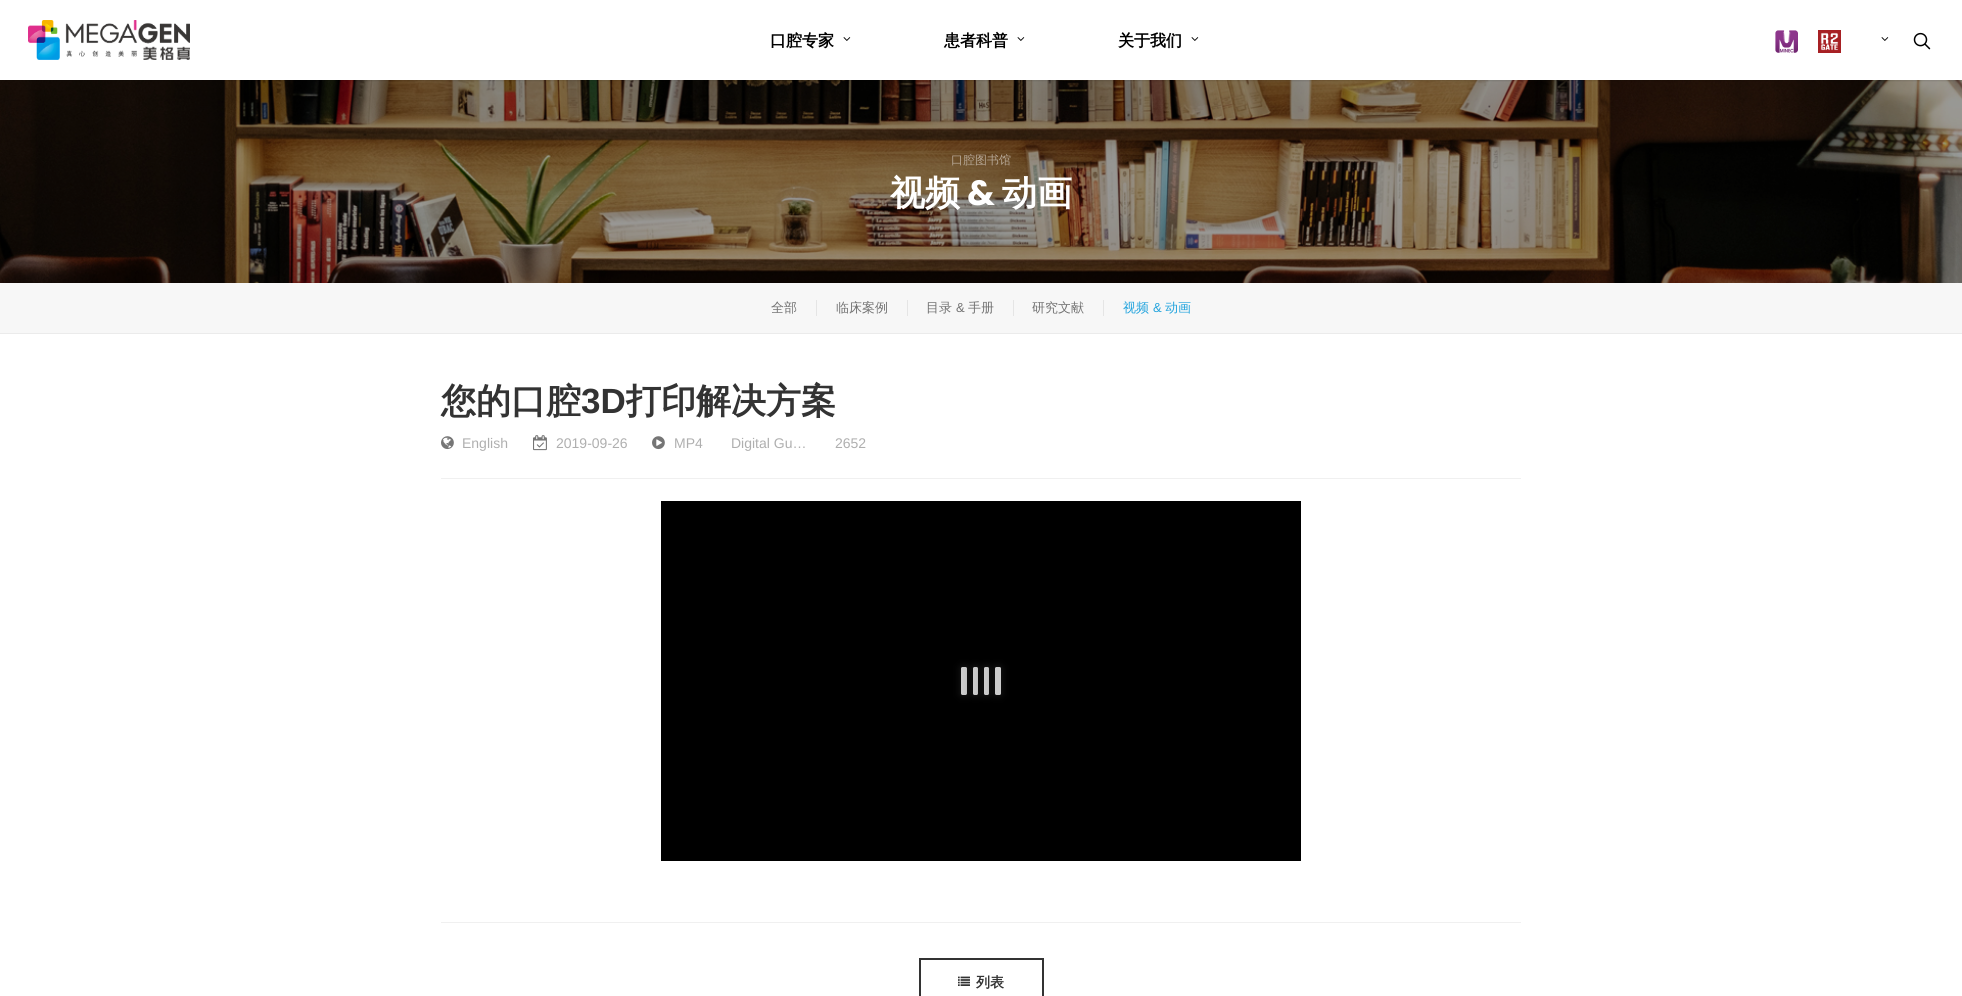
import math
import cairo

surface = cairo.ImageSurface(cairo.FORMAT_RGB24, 1962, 996)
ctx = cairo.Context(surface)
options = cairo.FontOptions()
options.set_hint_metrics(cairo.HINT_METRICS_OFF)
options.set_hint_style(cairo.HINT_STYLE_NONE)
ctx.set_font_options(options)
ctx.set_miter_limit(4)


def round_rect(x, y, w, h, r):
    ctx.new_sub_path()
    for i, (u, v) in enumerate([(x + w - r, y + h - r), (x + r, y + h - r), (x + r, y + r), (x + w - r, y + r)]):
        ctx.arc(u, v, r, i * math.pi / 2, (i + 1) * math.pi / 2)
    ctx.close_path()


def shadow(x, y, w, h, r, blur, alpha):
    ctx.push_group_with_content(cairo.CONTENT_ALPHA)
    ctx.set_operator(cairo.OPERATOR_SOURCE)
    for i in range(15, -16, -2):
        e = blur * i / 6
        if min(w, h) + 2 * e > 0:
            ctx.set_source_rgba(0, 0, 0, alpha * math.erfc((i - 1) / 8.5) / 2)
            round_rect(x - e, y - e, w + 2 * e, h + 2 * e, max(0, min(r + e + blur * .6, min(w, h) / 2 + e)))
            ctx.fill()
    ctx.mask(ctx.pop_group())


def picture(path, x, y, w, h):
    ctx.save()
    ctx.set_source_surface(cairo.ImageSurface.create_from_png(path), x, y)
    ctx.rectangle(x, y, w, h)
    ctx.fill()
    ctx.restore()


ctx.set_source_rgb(1, 1, 1)
ctx.paint()
picture("img6.png", 0, 80, 1962, 203)
ctx.save()
ctx.rectangle(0, 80, 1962, 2)
ctx.clip()
ctx.set_source_rgb(0, 0, 0)
shadow(0, 0, 1962, 80, 0, 1.5, 0.22)
ctx.restore()
picture("img1.png", 28, 20, 162, 40)
ctx.select_font_face("WenQuanYi Zen Hei", cairo.FONT_SLANT_NORMAL, cairo.FONT_WEIGHT_BOLD)
ctx.set_font_size(16)
ctx.set_source_rgb(0, 0, 0)
ctx.move_to(770, 46)
ctx.show_text("口腔专家")
picture("img2.png", 843, 37, 8, 4)
ctx.move_to(944, 46)
ctx.show_text("患者科普")
picture("img2.png", 1017, 37, 8, 4)
ctx.move_to(1118, 46)
ctx.show_text("关于我们")
picture("img2.png", 1191, 37, 8, 4)
picture("img3.png", 1775, 30, 23, 23)
picture("img4.png", 1818, 30, 23, 23)
picture("img2.png", 1881, 37, 8, 4)
picture("img5.png", 1913, 32, 18, 18)
ctx.select_font_face("WenQuanYi Zen Hei Medium")
ctx.set_font_size(12)
ctx.set_source_rgb(0.71, 0.651, 0.58)
ctx.move_to(951, 164)
ctx.show_text("口腔图书馆")
ctx.select_font_face("WenQuanYi Zen Hei", cairo.FONT_SLANT_NORMAL, cairo.FONT_WEIGHT_BOLD)
ctx.set_font_size(35)
ctx.set_source_rgb(1, 1, 1)
ctx.move_to(890, 205)
ctx.show_text("视频")
ctx.select_font_face("Poppins", cairo.FONT_SLANT_NORMAL, cairo.FONT_WEIGHT_BOLD)
ctx.move_to(967, 205)
ctx.show_text("&")
ctx.select_font_face("WenQuanYi Zen Hei", cairo.FONT_SLANT_NORMAL, cairo.FONT_WEIGHT_BOLD)
ctx.move_to(1002, 205)
ctx.show_text("动画")
ctx.set_source_rgb(0.965, 0.965, 0.965)
ctx.rectangle(0, 283, 1962, 50)
ctx.fill()
ctx.set_source_rgb(0.918, 0.918, 0.918)
ctx.rectangle(0, 333, 1962, 1)
ctx.fill()
ctx.select_font_face("WenQuanYi Zen Hei Medium")
ctx.set_font_size(13)
ctx.set_source_rgb(0.447, 0.447, 0.447)
ctx.move_to(771, 312)
ctx.show_text("全部")
ctx.set_source_rgb(0.898, 0.898, 0.898)
ctx.rectangle(816, 300, 1, 16)
ctx.fill()
ctx.set_source_rgb(0.447, 0.447, 0.447)
ctx.move_to(836, 312)
ctx.show_text("临床案例")
ctx.set_source_rgb(0.898, 0.898, 0.898)
ctx.rectangle(907, 300, 1, 16)
ctx.fill()
ctx.set_source_rgb(0.447, 0.447, 0.447)
ctx.move_to(926, 312)
ctx.show_text("目录")
ctx.select_font_face("Liberation Sans")
ctx.move_to(956, 312)
ctx.show_text("&")
ctx.select_font_face("WenQuanYi Zen Hei Medium")
ctx.move_to(968, 312)
ctx.show_text("手册")
ctx.set_source_rgb(0.898, 0.898, 0.898)
ctx.rectangle(1013, 300, 1, 16)
ctx.fill()
ctx.set_source_rgb(0.447, 0.447, 0.447)
ctx.move_to(1032, 312)
ctx.show_text("研究文献")
ctx.set_source_rgb(0.898, 0.898, 0.898)
ctx.rectangle(1103, 300, 1, 16)
ctx.fill()
ctx.set_source_rgb(0.129, 0.639, 0.867)
ctx.move_to(1123, 312)
ctx.show_text("视频")
ctx.select_font_face("Liberation Sans")
ctx.move_to(1153, 312)
ctx.show_text("&")
ctx.select_font_face("WenQuanYi Zen Hei Medium")
ctx.move_to(1165, 312)
ctx.show_text("动画")
ctx.select_font_face("WenQuanYi Zen Hei", cairo.FONT_SLANT_NORMAL, cairo.FONT_WEIGHT_BOLD)
ctx.set_font_size(35)
ctx.set_source_rgb(0.2, 0.2, 0.2)
ctx.move_to(441, 413)
ctx.show_text("您的口腔")
ctx.select_font_face("Liberation Sans", cairo.FONT_SLANT_NORMAL, cairo.FONT_WEIGHT_BOLD)
ctx.move_to(581, 413)
ctx.show_text("3D")
ctx.select_font_face("WenQuanYi Zen Hei", cairo.FONT_SLANT_NORMAL, cairo.FONT_WEIGHT_BOLD)
ctx.move_to(626, 413)
ctx.show_text("打印解决方案")
picture("img7.png", 441, 436, 13, 14)
ctx.select_font_face("Liberation Sans")
ctx.set_font_size(14)
ctx.set_source_rgb(0.686, 0.686, 0.686)
ctx.move_to(462, 448)
ctx.show_text("English")
picture("img8.png", 533, 435, 14, 16)
ctx.move_to(556, 448)
ctx.show_text("2019-09-26")
picture("img9.png", 652, 436, 13, 14)
ctx.move_to(674, 448)
ctx.show_text("MP4")
ctx.move_to(731, 448)
ctx.show_text("Digital Gu…")
ctx.move_to(835, 448)
ctx.show_text("2652")
ctx.set_source_rgb(0.941, 0.941, 0.941)
ctx.rectangle(441, 478, 1080, 1)
ctx.fill()
ctx.rectangle(441, 922, 1080, 1)
ctx.fill()
ctx.set_source_rgb(0, 0, 0)
ctx.rectangle(661, 501, 640, 360)
ctx.fill()
ctx.set_source_rgb(0.106, 0.106, 0.106)
shadow(961, 667, 6, 28, 1.5, 4, 1)
ctx.set_source_rgb(0.8, 0.8, 0.8)
round_rect(961, 667, 6, 28, 1.5)
ctx.fill()
ctx.set_source_rgb(0.106, 0.106, 0.106)
shadow(973, 667, 5, 28, 1.5, 4, 1)
ctx.set_source_rgb(0.8, 0.8, 0.8)
round_rect(973, 667, 5, 28, 1.5)
ctx.fill()
ctx.set_source_rgb(0.106, 0.106, 0.106)
shadow(984, 667, 5, 28, 1.5, 4, 1)
ctx.set_source_rgb(0.8, 0.8, 0.8)
round_rect(984, 667, 5, 28, 1.5)
ctx.fill()
ctx.set_source_rgb(0.106, 0.106, 0.106)
shadow(995, 667, 6, 28, 1.5, 4, 1)
ctx.set_source_rgb(0.8, 0.8, 0.8)
round_rect(995, 667, 6, 28, 1.5)
ctx.fill()
ctx.rectangle(920, 959, 123, 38)
ctx.set_source_rgb(0.2, 0.2, 0.2)
ctx.stroke()
picture("img10.png", 958, 976, 12, 10)
ctx.select_font_face("WenQuanYi Zen Hei", cairo.FONT_SLANT_NORMAL, cairo.FONT_WEIGHT_BOLD)
ctx.move_to(976, 987)
ctx.show_text("列表")
surface.write_to_png("page.png")
